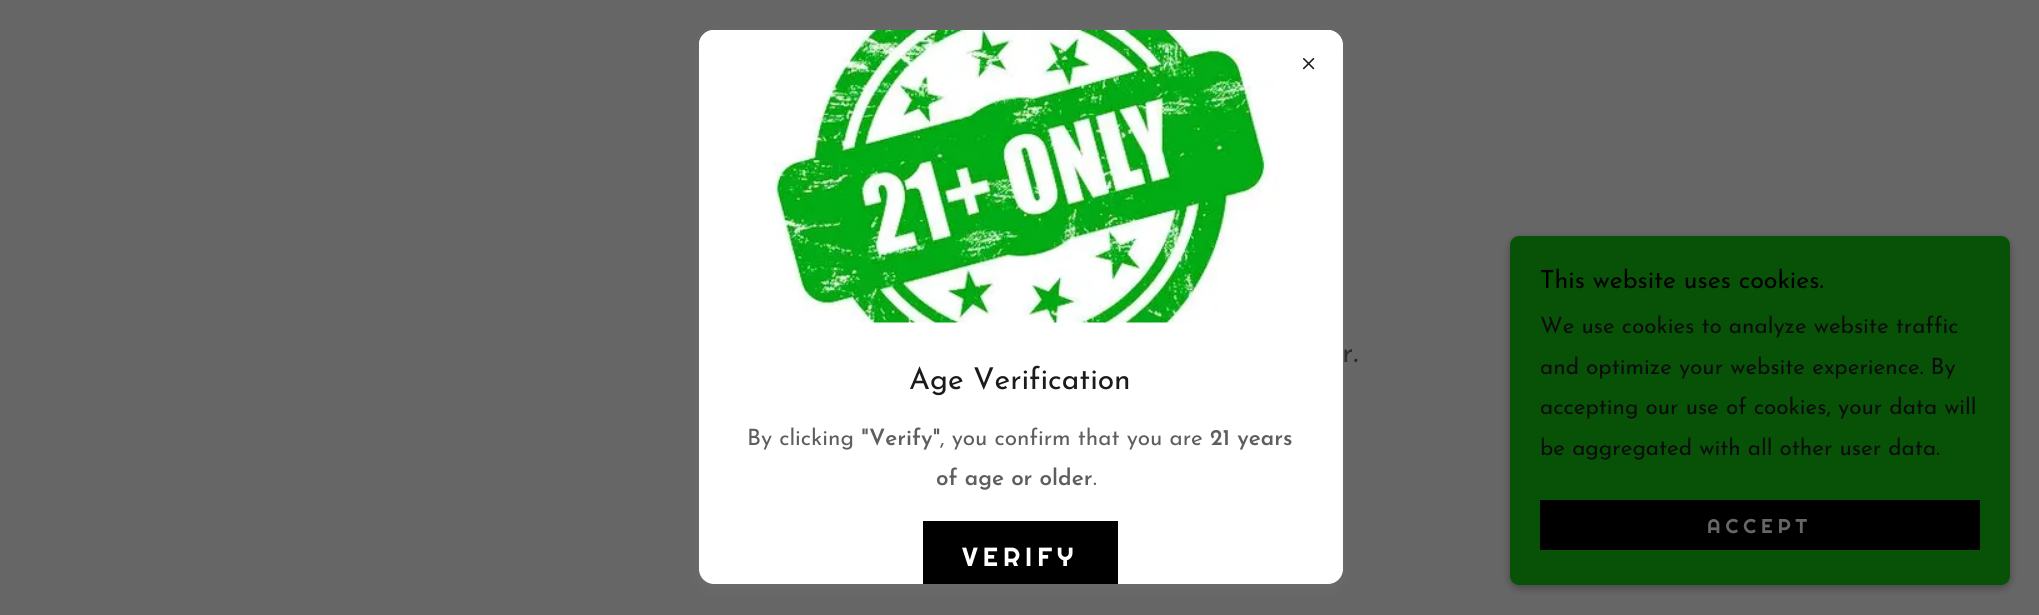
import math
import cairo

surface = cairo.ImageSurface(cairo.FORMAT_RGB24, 2039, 615)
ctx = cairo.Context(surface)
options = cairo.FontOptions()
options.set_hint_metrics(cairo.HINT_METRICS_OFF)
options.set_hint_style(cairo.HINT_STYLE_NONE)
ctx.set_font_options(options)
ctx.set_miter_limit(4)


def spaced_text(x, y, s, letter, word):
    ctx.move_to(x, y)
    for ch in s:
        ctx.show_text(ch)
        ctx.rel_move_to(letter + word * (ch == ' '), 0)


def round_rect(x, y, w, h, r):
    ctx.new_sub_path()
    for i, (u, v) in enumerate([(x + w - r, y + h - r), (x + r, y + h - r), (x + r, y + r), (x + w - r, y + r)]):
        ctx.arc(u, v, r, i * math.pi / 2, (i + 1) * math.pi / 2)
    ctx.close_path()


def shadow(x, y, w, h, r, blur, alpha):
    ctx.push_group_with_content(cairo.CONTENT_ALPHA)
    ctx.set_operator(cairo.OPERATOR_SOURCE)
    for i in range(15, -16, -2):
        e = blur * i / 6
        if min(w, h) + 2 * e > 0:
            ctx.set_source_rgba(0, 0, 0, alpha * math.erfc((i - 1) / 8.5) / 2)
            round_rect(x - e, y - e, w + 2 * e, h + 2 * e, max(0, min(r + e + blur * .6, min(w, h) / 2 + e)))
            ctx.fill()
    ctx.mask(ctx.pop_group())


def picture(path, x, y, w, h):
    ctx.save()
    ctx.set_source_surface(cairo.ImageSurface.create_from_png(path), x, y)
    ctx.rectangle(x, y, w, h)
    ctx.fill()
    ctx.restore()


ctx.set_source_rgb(0.4, 0.4, 0.4)
ctx.paint()
ctx.select_font_face("Josefin Sans")
ctx.set_font_size(30)
ctx.set_source_rgb(0.149, 0.149, 0.149)
ctx.move_to(1342, 362)
ctx.show_text("r.")
ctx.set_source_rgb(0, 0, 0)
shadow(1510, 239, 500, 349, 9, 4, 0.3)
ctx.set_source_rgb(0.035, 0.322, 0.035)
round_rect(1510, 236, 500, 349, 9)
ctx.fill()
ctx.set_font_size(25)
ctx.set_source_rgb(0, 0, 0)
ctx.move_to(1540, 288)
ctx.show_text("This website uses cookies.")
ctx.set_font_size(22.5)
ctx.set_source_rgb(0.043, 0.051, 0.043)
ctx.move_to(1540, 333)
ctx.show_text("We use cookies to analyze website traffic")
ctx.move_to(1540, 374)
ctx.show_text("and optimize your website experience. By")
ctx.move_to(1540, 414)
ctx.show_text("accepting our use of cookies, your data will")
ctx.move_to(1540, 455)
ctx.show_text("be aggregated with all other user data.")
ctx.set_source_rgb(0, 0, 0)
ctx.rectangle(1540, 500, 440, 50)
ctx.fill()
ctx.select_font_face("Righteous")
ctx.set_font_size(20)
ctx.set_source_rgb(0.4, 0.4, 0.4)
spaced_text(1707, 533, "ACCEPT", 5, 0)
ctx.set_source_rgb(0.459, 0.459, 0.459)
shadow(699, 35, 644, 554, 15, 7.5, 0.4)
ctx.set_source_rgb(1, 1, 1)
round_rect(699, 30, 644, 554, 15)
ctx.fill()
picture("img2.png", 699, 30, 644, 293)
picture("img1.png", 1303, 58, 12, 12)
ctx.select_font_face("Josefin Sans")
ctx.set_font_size(30)
ctx.set_source_rgb(0.106, 0.106, 0.106)
ctx.move_to(909, 389)
ctx.show_text("Age Verification")
ctx.set_font_size(22.5)
ctx.set_source_rgb(0.369, 0.369, 0.369)
ctx.move_to(747, 445)
ctx.show_text("By clicking")
ctx.select_font_face("Josefin Sans SemiBold")
ctx.move_to(861, 445)
ctx.show_text("\"Verify\"")
ctx.select_font_face("Josefin Sans")
ctx.move_to(940, 445)
ctx.show_text(", you confirm that you are")
ctx.select_font_face("Josefin Sans SemiBold")
ctx.move_to(1210, 445)
ctx.show_text("21 years")
ctx.move_to(936, 485)
ctx.show_text("of age or older")
ctx.select_font_face("Josefin Sans")
ctx.move_to(1093, 485)
ctx.show_text(".")
ctx.set_source_rgb(0, 0, 0)
ctx.rectangle(923, 521, 195, 63)
ctx.fill()
ctx.select_font_face("Righteous")
ctx.set_font_size(26.25)
ctx.set_source_rgb(1, 1, 1)
spaced_text(962, 566, "VERIFY", 5, 0)
surface.write_to_png("page.png")
